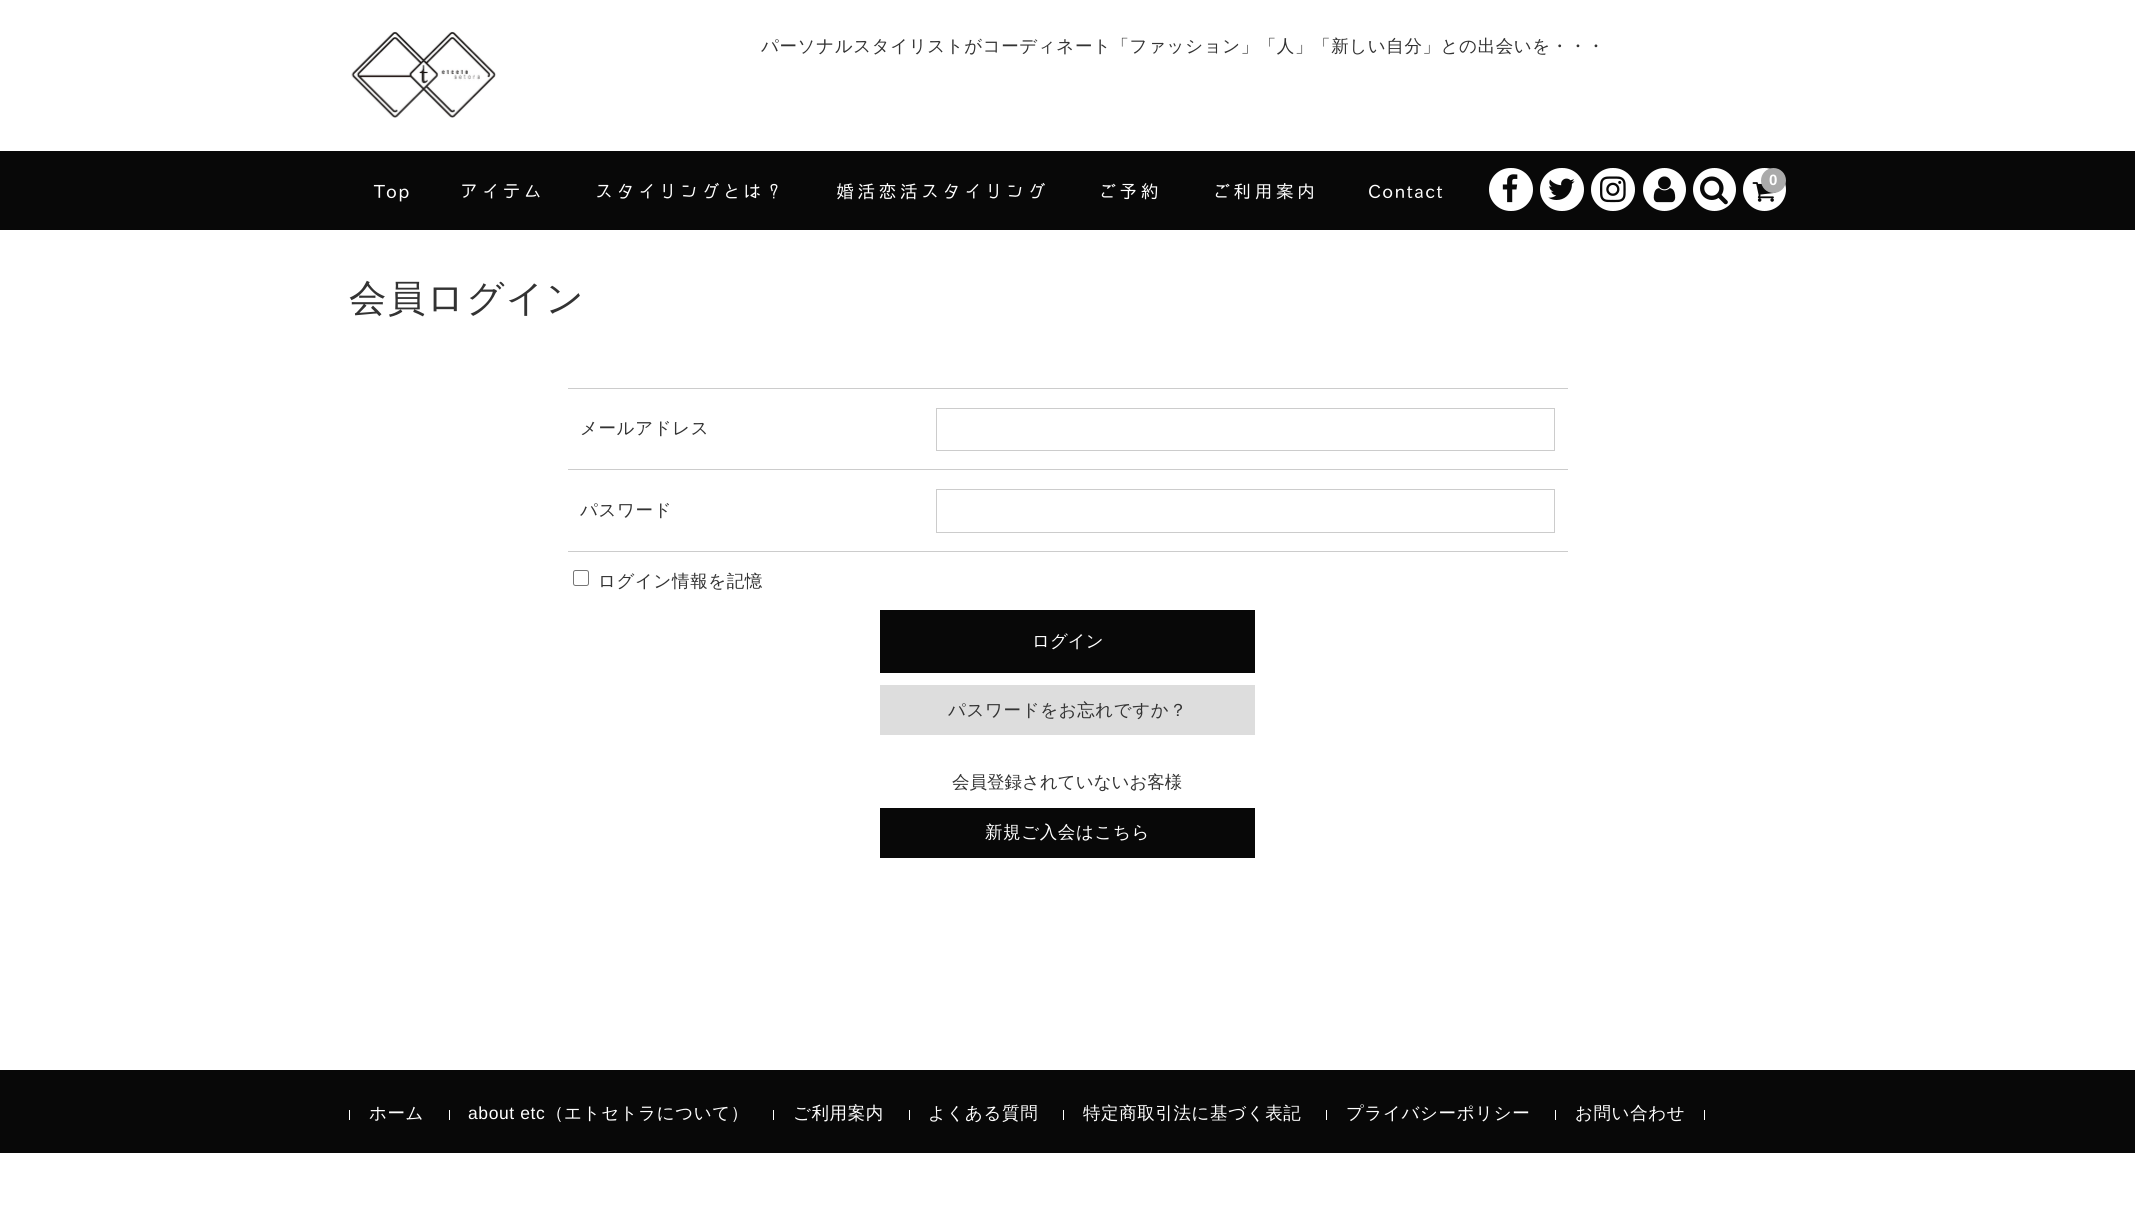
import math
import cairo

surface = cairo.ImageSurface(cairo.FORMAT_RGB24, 2135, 1229)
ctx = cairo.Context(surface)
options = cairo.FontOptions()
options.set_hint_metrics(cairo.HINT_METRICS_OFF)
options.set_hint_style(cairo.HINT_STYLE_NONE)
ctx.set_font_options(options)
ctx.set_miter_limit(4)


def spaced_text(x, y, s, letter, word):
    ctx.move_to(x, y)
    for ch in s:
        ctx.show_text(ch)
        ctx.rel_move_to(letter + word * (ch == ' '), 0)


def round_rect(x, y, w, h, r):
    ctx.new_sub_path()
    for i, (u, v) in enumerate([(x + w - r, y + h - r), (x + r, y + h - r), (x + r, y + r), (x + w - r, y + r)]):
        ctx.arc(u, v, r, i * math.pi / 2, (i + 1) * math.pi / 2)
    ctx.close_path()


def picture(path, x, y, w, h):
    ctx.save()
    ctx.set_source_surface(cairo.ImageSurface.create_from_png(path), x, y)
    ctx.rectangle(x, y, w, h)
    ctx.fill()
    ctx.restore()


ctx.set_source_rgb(1, 1, 1)
ctx.paint()
picture("img1.png", 351, 31, 145, 87)
ctx.select_font_face("WenQuanYi Zen Hei Medium")
ctx.set_font_size(17.5)
ctx.set_source_rgb(0.2, 0.2, 0.2)
spaced_text(761, 52, "パーソナルスタイリストがコーディネート「ファッション」「人」「新しい自分」との出会いを・・・", 0.6, 0)
ctx.set_source_rgb(0.035, 0.035, 0.035)
ctx.rectangle(0, 151, 2135, 79)
ctx.fill()
ctx.set_source_rgb(1, 1, 1)
ctx.arc(1764.5, 189.5, 21.5, 0, 2 * math.pi)
ctx.fill()
picture("img2.png", 1752, 182, 24, 20)
ctx.set_source_rgb(0.667, 0.667, 0.667)
ctx.arc(1773.5, 180.5, 12.5, 0, 2 * math.pi)
ctx.fill()
ctx.select_font_face("Liberation Sans", cairo.FONT_SLANT_NORMAL, cairo.FONT_WEIGHT_BOLD)
ctx.set_font_size(15)
ctx.set_source_rgb(1, 1, 1)
spaced_text(1769, 185, "0", 1.25, 0)
ctx.select_font_face("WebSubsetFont")
ctx.set_font_size(20)
spaced_text(374, 198, "Top", 1.25, 0)
spaced_text(460, 198, "アイテム", 1.25, 0)
spaced_text(595, 198, "スタイリングとは？", 1.25, 0)
spaced_text(836, 198, "婚活恋活スタイリング", 1.25, 0)
spaced_text(1098, 198, "ご予約", 1.25, 0)
spaced_text(1212, 198, "ご利用案内", 1.25, 0)
spaced_text(1368, 198, "Contact", 1.25, 0)
round_rect(1489, 168, 44, 43, 21.5)
ctx.fill()
picture("img3.png", 1502, 174, 16, 29)
round_rect(1540, 168, 44, 43, 21.5)
ctx.fill()
picture("img4.png", 1548, 178, 27, 22)
round_rect(1591, 168, 44, 43, 21.5)
ctx.fill()
picture("img5.png", 1600, 176, 26, 27)
ctx.arc(1664.5, 189.5, 21.5, 0, 2 * math.pi)
ctx.fill()
picture("img6.png", 1653, 176, 23, 27)
ctx.arc(1714.5, 189.5, 21.5, 0, 2 * math.pi)
ctx.fill()
picture("img7.png", 1700, 176, 28, 29)
ctx.select_font_face("WenQuanYi Zen Hei Medium")
ctx.set_font_size(37.5)
ctx.set_source_rgb(0.2, 0.2, 0.2)
spaced_text(349, 311, "会員ログイン", 1.25, 0)
ctx.set_source_rgb(0.8, 0.8, 0.8)
ctx.rectangle(568, 388, 1000, 1)
ctx.fill()
ctx.rectangle(568, 469, 1000, 1)
ctx.fill()
ctx.set_font_size(17.5)
ctx.set_source_rgb(0.2, 0.2, 0.2)
spaced_text(580, 434, "メールアドレス", 0.6, 0)
ctx.rectangle(936.5, 408.5, 618, 42)
ctx.set_source_rgb(0.8, 0.8, 0.8)
ctx.set_line_width(1)
ctx.stroke()
ctx.rectangle(568, 551, 1000, 1)
ctx.fill()
ctx.set_source_rgb(0.2, 0.2, 0.2)
spaced_text(580, 516, "パスワード", 0.6, 0)
ctx.rectangle(936.5, 489.5, 618, 43)
ctx.set_source_rgb(0.8, 0.8, 0.8)
ctx.stroke()
round_rect(573.5, 570.5, 15, 15, 2)
ctx.set_source_rgb(0.463, 0.463, 0.463)
ctx.stroke()
ctx.set_source_rgb(0.2, 0.2, 0.2)
spaced_text(598, 587, "ログイン情報を記憶", 0.6, 0)
ctx.set_source_rgb(0.035, 0.035, 0.035)
ctx.rectangle(880, 610, 375, 63)
ctx.fill()
ctx.set_source_rgb(1, 1, 1)
ctx.move_to(1032, 647)
ctx.show_text("ログイン")
ctx.set_source_rgb(0.867, 0.867, 0.867)
ctx.rectangle(880, 685, 375, 50)
ctx.fill()
ctx.set_source_rgb(0.2, 0.2, 0.2)
spaced_text(948, 716, "パスワードをお忘れですか？", 0.6, 0)
ctx.move_to(952, 788)
ctx.show_text("会員登録されていないお客様")
ctx.set_source_rgb(0.035, 0.035, 0.035)
ctx.rectangle(880, 808, 375, 50)
ctx.fill()
ctx.set_source_rgb(1, 1, 1)
spaced_text(985, 838, "新規ご入会はこちら", 0.6, 0)
ctx.set_source_rgb(0.035, 0.035, 0.035)
ctx.rectangle(0, 1070, 2135, 83)
ctx.fill()
ctx.set_source_rgb(1, 1, 1)
ctx.rectangle(349, 1110, 1, 10)
ctx.fill()
spaced_text(369, 1119, "ホーム", 0.6, 0)
ctx.rectangle(449, 1110, 1, 10)
ctx.fill()
ctx.select_font_face("Liberation Sans")
spaced_text(468, 1119, "about etc", 0.6, 0)
ctx.select_font_face("WenQuanYi Zen Hei Medium")
spaced_text(546, 1119, "（エトセトラについて）", 0.6, 0)
ctx.rectangle(773, 1110, 1, 10)
ctx.fill()
spaced_text(793, 1119, "ご利用案内", 0.6, 0)
ctx.rectangle(909, 1110, 1, 10)
ctx.fill()
spaced_text(928, 1119, "よくある質問", 0.6, 0)
ctx.rectangle(1063, 1110, 1, 10)
ctx.fill()
spaced_text(1083, 1119, "特定商取引法に基づく表記", 0.6, 0)
ctx.rectangle(1326, 1110, 1, 10)
ctx.fill()
spaced_text(1346, 1119, "プライバシーポリシー", 0.6, 0)
ctx.rectangle(1555, 1110, 1, 10)
ctx.fill()
spaced_text(1575, 1119, "お問い合わせ", 0.6, 0)
ctx.rectangle(1704, 1110, 1, 10)
ctx.fill()
surface.write_to_png("page.png")
